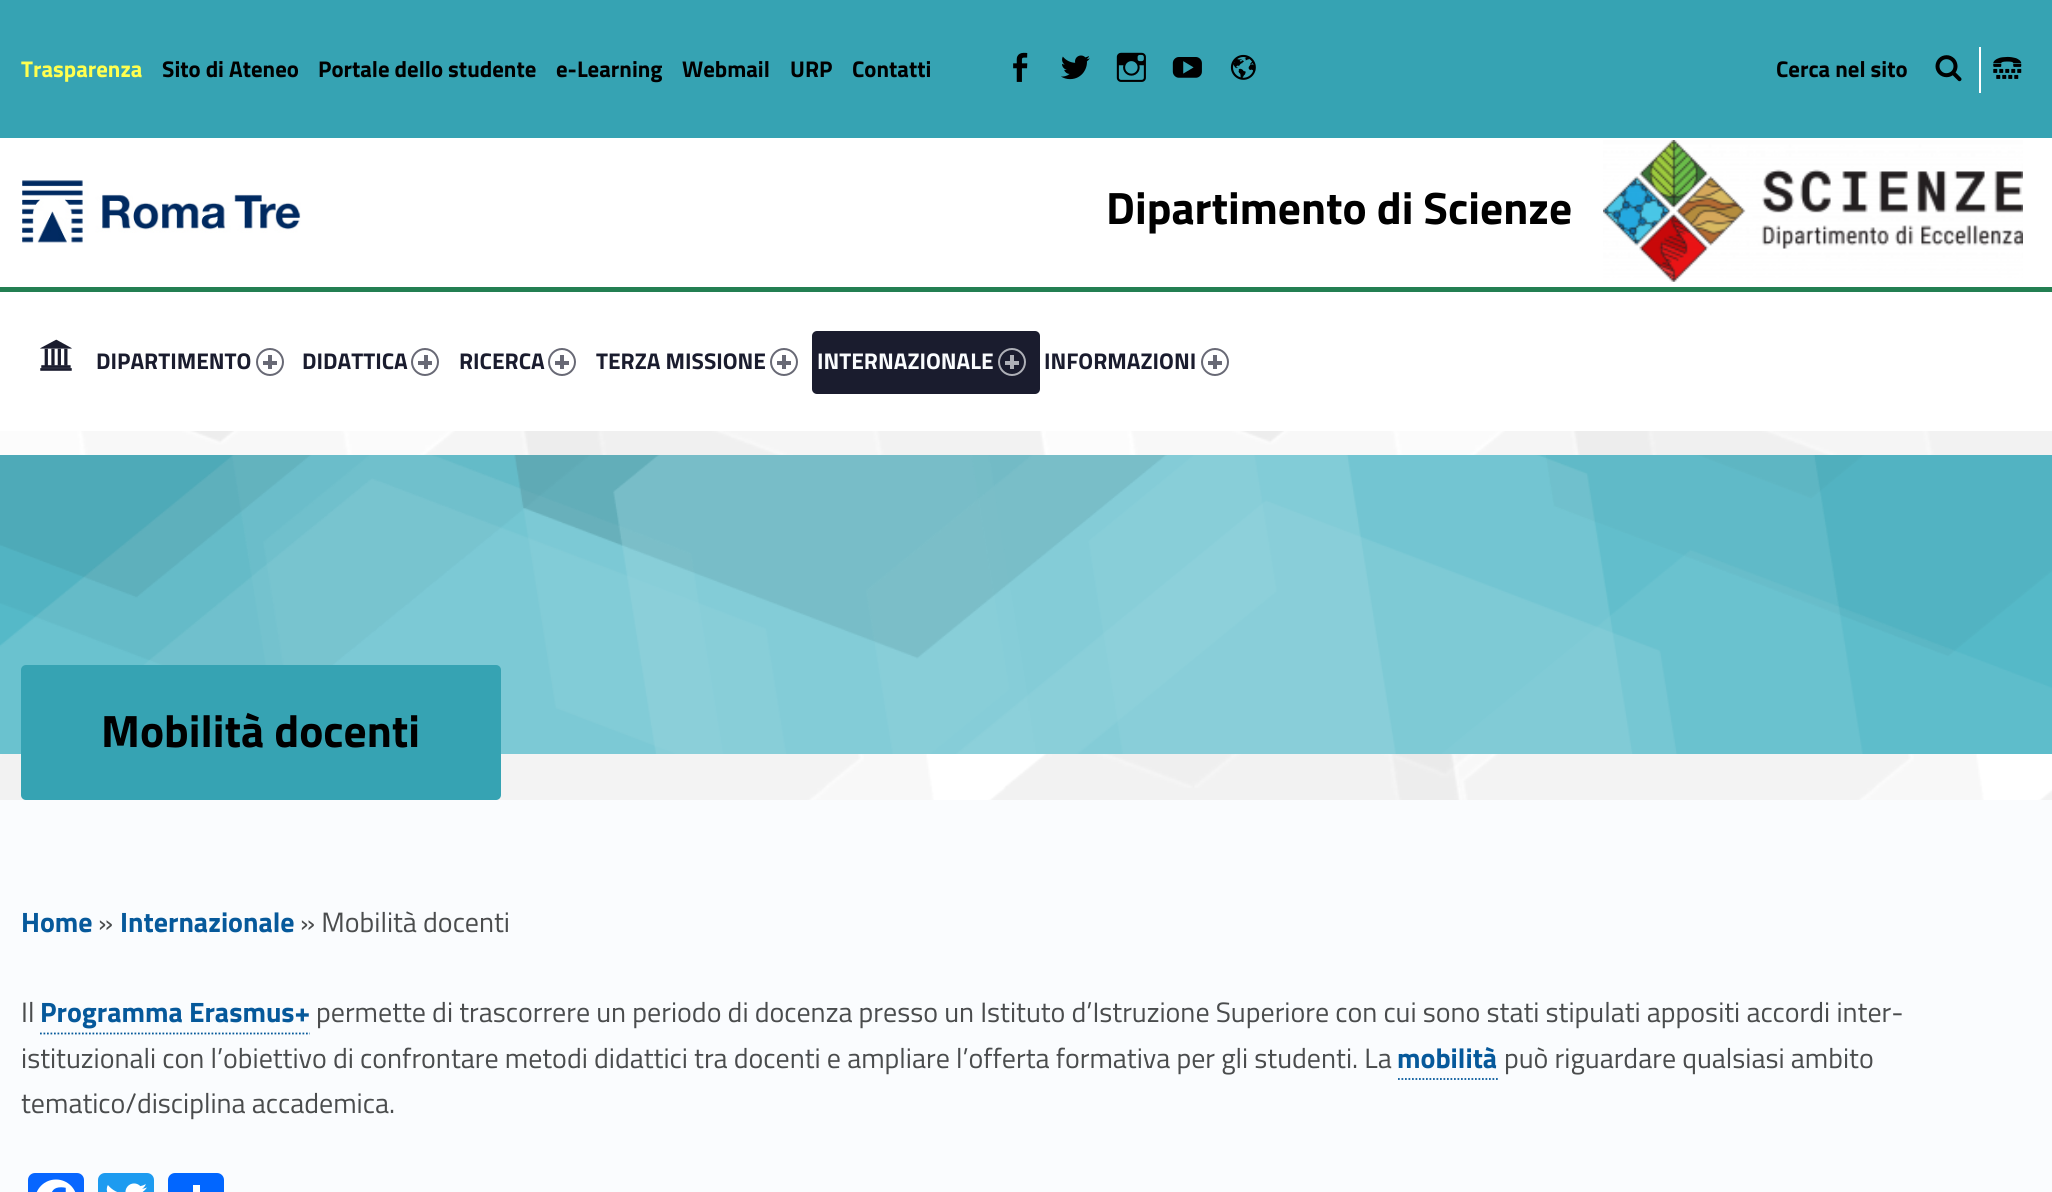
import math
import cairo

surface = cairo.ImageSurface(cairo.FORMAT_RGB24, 2052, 1192)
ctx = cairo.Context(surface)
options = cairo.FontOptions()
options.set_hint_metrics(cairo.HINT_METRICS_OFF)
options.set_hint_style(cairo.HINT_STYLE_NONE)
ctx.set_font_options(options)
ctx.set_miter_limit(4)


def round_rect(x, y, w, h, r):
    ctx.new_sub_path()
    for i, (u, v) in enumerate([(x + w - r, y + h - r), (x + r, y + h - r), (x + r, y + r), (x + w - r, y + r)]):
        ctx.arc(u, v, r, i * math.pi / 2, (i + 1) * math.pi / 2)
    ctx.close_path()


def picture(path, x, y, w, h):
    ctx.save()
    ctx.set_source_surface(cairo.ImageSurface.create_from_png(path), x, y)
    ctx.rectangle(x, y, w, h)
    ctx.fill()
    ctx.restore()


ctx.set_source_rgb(1, 1, 1)
ctx.paint()
picture("img1.png", 0, 431, 2052, 369)
ctx.set_source_rgb(0.212, 0.639, 0.702)
ctx.rectangle(0, 0, 2052, 138)
ctx.fill()
ctx.select_font_face("Titillium Web", cairo.FONT_SLANT_NORMAL, cairo.FONT_WEIGHT_BOLD)
ctx.set_font_size(22.75)
ctx.set_source_rgb(1, 1, 0.31)
ctx.move_to(21, 77)
ctx.show_text("Trasparenza")
ctx.set_source_rgb(0, 0, 0)
ctx.move_to(162, 77)
ctx.show_text("Sito di Ateneo")
ctx.move_to(318, 77)
ctx.show_text("Portale dello studente")
ctx.move_to(556, 77)
ctx.show_text("e-Learning")
ctx.move_to(682, 77)
ctx.show_text("Webmail")
ctx.move_to(790, 77)
ctx.show_text("URP")
ctx.move_to(852, 77)
ctx.show_text("Contatti")
picture("img2.png", 1013, 52, 15, 30)
picture("img3.png", 1061, 55, 29, 25)
picture("img4.png", 1116, 52, 30, 30)
picture("img5.png", 1172, 57, 30, 21)
picture("img6.png", 1230, 54, 26, 26)
ctx.move_to(1776, 77)
ctx.show_text("Cerca nel sito")
picture("img7.png", 1935, 55, 27, 27)
ctx.set_source_rgb(1, 1, 1)
ctx.rectangle(1979, 47, 2, 46)
ctx.fill()
picture("img8.png", 1993, 56, 29, 23)
picture("img9.png", 22, 180, 279, 63)
ctx.set_font_size(45.4)
ctx.set_source_rgb(0, 0, 0)
ctx.move_to(1106, 224)
ctx.show_text("Dipartimento di Scienze")
picture("img10.png", 1603, 140, 420, 142)
picture("img11.png", 40, 339, 32, 32)
ctx.set_font_size(22.75)
ctx.set_source_rgb(0.102, 0.11, 0.18)
ctx.move_to(96, 369)
ctx.show_text("DIPARTIMENTO")
ctx.new_path()
ctx.arc(270, 362, 13, 0, 2 * math.pi)
ctx.set_source_rgb(0.408, 0.412, 0.459)
ctx.stroke()
ctx.rectangle(263, 361, 14, 4)
ctx.fill()
ctx.rectangle(268, 355, 4, 14)
ctx.fill()
ctx.set_source_rgb(0.102, 0.11, 0.18)
ctx.move_to(302, 369)
ctx.show_text("DIDATTICA")
ctx.new_path()
ctx.arc(425, 362, 13, 0, 2 * math.pi)
ctx.set_source_rgb(0.408, 0.412, 0.459)
ctx.stroke()
ctx.rectangle(418, 361, 14, 4)
ctx.fill()
ctx.rectangle(424, 355, 4, 14)
ctx.fill()
ctx.set_source_rgb(0.102, 0.11, 0.18)
ctx.move_to(459, 369)
ctx.show_text("RICERCA")
ctx.new_path()
ctx.arc(562, 362, 13, 0, 2 * math.pi)
ctx.set_source_rgb(0.408, 0.412, 0.459)
ctx.stroke()
ctx.rectangle(555, 361, 14, 4)
ctx.fill()
ctx.rectangle(560, 355, 4, 14)
ctx.fill()
ctx.set_source_rgb(0.102, 0.11, 0.18)
ctx.move_to(596, 369)
ctx.show_text("TERZA MISSIONE")
ctx.new_path()
ctx.arc(784, 362, 13, 0, 2 * math.pi)
ctx.set_source_rgb(0.408, 0.412, 0.459)
ctx.stroke()
ctx.rectangle(777, 361, 14, 4)
ctx.fill()
ctx.rectangle(782, 355, 4, 14)
ctx.fill()
ctx.set_source_rgb(0.102, 0.11, 0.18)
round_rect(812, 331, 228, 63, 5)
ctx.fill()
ctx.set_source_rgb(0.98, 0.988, 0.996)
ctx.move_to(817, 369)
ctx.show_text("INTERNAZIONALE")
ctx.new_path()
ctx.arc(1012, 362, 13, 0, 2 * math.pi)
ctx.set_source_rgb(0.682, 0.69, 0.718)
ctx.stroke()
ctx.rectangle(1005, 361, 14, 4)
ctx.fill()
ctx.rectangle(1010, 355, 4, 14)
ctx.fill()
ctx.set_source_rgb(0.102, 0.11, 0.18)
ctx.move_to(1044, 369)
ctx.show_text("INFORMAZIONI")
ctx.new_path()
ctx.arc(1215, 362, 13, 0, 2 * math.pi)
ctx.set_source_rgb(0.408, 0.412, 0.459)
ctx.stroke()
ctx.rectangle(1208, 361, 14, 4)
ctx.fill()
ctx.rectangle(1213, 355, 4, 14)
ctx.fill()
ctx.set_source_rgb(0.137, 0.498, 0.322)
ctx.rectangle(0, 287, 2052, 5)
ctx.fill()
ctx.set_source_rgb(0.333, 0.725, 0.784)
ctx.rectangle(0, 455, 2052, 299)
ctx.fill()
picture("img12.png", 0, 455, 2052, 299)
ctx.set_source_rgb(0.212, 0.639, 0.702)
round_rect(21, 665, 480, 135, 5)
ctx.fill()
ctx.set_font_size(45.4)
ctx.set_source_rgb(0, 0, 0)
ctx.move_to(101, 747)
ctx.show_text("Mobilità docenti")
ctx.set_source_rgb(0.98, 0.988, 0.996)
ctx.rectangle(0, 800, 2052, 392)
ctx.fill()
ctx.set_font_size(28)
ctx.set_source_rgb(0.027, 0.349, 0.608)
ctx.move_to(21, 932)
ctx.show_text("Home")
ctx.select_font_face("Titillium Web")
ctx.set_source_rgb(0.29, 0.298, 0.302)
ctx.move_to(98, 932)
ctx.show_text("»")
ctx.select_font_face("Titillium Web", cairo.FONT_SLANT_NORMAL, cairo.FONT_WEIGHT_BOLD)
ctx.set_source_rgb(0.027, 0.349, 0.608)
ctx.move_to(120, 932)
ctx.show_text("Internazionale")
ctx.select_font_face("Titillium Web")
ctx.set_source_rgb(0.29, 0.298, 0.302)
ctx.move_to(300, 932)
ctx.show_text("» Mobilità docenti")
ctx.move_to(21, 1022)
ctx.show_text("Il")
ctx.select_font_face("Titillium Web", cairo.FONT_SLANT_NORMAL, cairo.FONT_WEIGHT_BOLD)
ctx.set_source_rgb(0.027, 0.349, 0.608)
ctx.move_to(40, 1022)
ctx.show_text("Programma Erasmus+")
ctx.new_path()
ctx.move_to(40, 1033.5)
ctx.line_to(310, 1033.5)
ctx.set_line_width(1.8)
ctx.set_dash([1.75, 1.75])
ctx.stroke()
ctx.select_font_face("Titillium Web")
ctx.set_source_rgb(0.29, 0.298, 0.302)
ctx.move_to(316, 1022)
ctx.show_text("permette di trascorrere un periodo di docenza presso un Istituto d’Istruzione Superiore con cui sono stati stipulati appositi accordi inter-")
ctx.move_to(21, 1068)
ctx.show_text("istituzionali con l’obiettivo di confrontare metodi didattici tra docenti e ampliare l’offerta formativa per gli studenti. La")
ctx.select_font_face("Titillium Web", cairo.FONT_SLANT_NORMAL, cairo.FONT_WEIGHT_BOLD)
ctx.set_source_rgb(0.027, 0.349, 0.608)
ctx.move_to(1397, 1068)
ctx.show_text("mobilità")
ctx.new_path()
ctx.move_to(1398, 1079)
ctx.line_to(1498, 1079)
ctx.stroke()
ctx.select_font_face("Titillium Web")
ctx.set_source_rgb(0.29, 0.298, 0.302)
ctx.move_to(1504, 1068)
ctx.show_text("può riguardare qualsiasi ambito")
ctx.move_to(21, 1113)
ctx.show_text("tematico/disciplina accademica.")
ctx.set_source_rgb(0.031, 0.4, 1)
round_rect(28, 1173, 56, 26, 7)
ctx.fill()
picture("img13.png", 36, 1179, 40, 13)
ctx.set_source_rgb(0.114, 0.608, 0.941)
round_rect(98, 1173, 56, 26, 7)
ctx.fill()
picture("img14.png", 106, 1183, 41, 9)
ctx.set_source_rgb(0.004, 0.4, 1)
round_rect(168, 1173, 56, 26, 7)
ctx.fill()
ctx.set_source_rgb(1, 1, 1)
ctx.rectangle(193, 1185, 7, 7)
ctx.fill()
surface.write_to_png("page.png")
